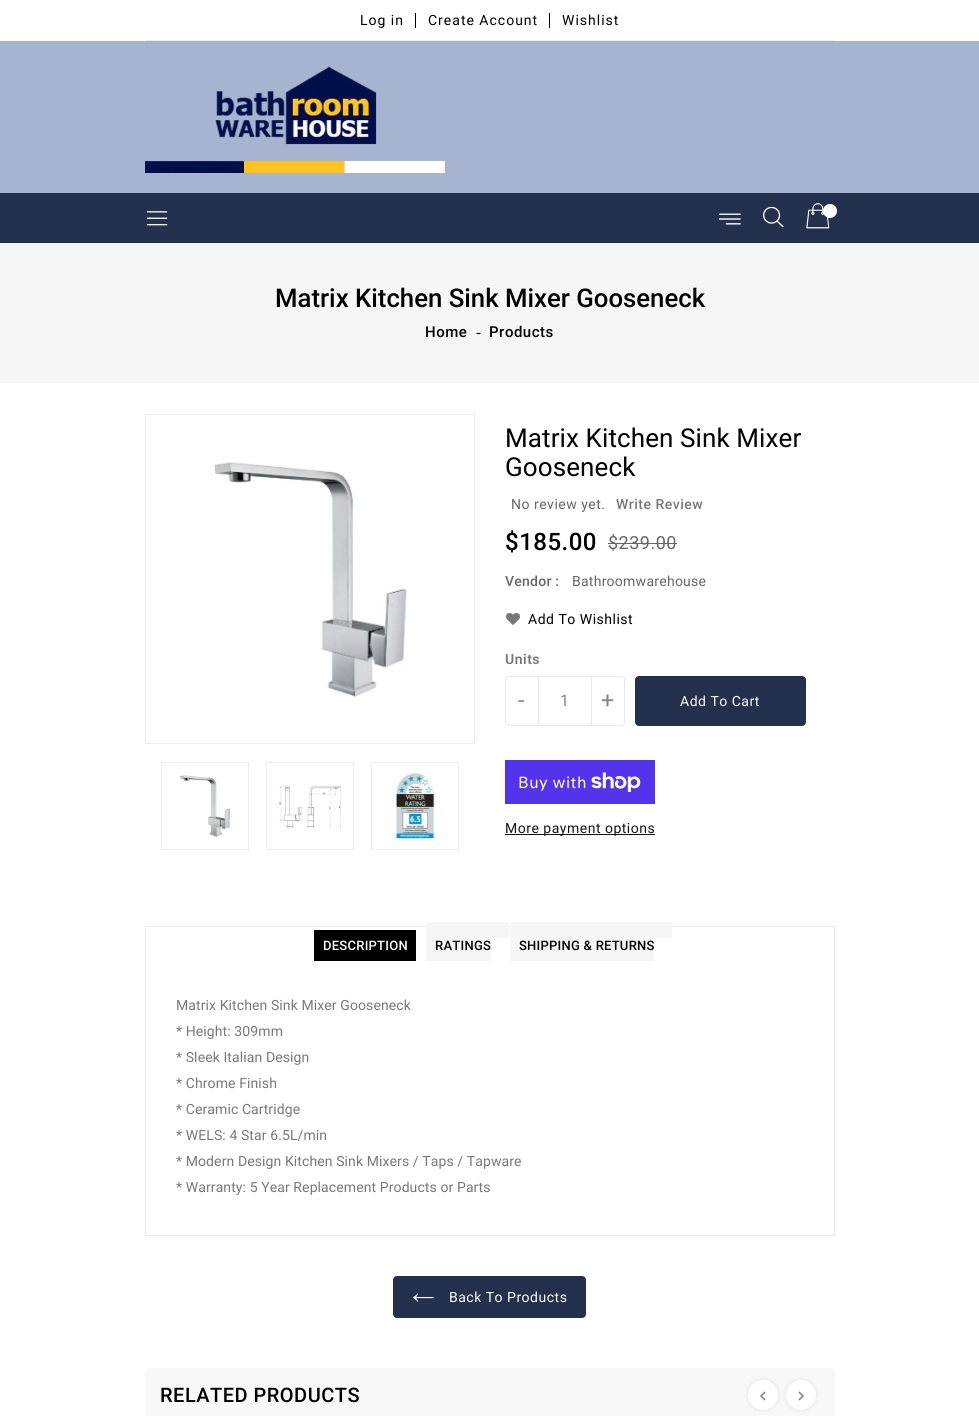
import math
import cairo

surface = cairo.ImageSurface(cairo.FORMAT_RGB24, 979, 1416)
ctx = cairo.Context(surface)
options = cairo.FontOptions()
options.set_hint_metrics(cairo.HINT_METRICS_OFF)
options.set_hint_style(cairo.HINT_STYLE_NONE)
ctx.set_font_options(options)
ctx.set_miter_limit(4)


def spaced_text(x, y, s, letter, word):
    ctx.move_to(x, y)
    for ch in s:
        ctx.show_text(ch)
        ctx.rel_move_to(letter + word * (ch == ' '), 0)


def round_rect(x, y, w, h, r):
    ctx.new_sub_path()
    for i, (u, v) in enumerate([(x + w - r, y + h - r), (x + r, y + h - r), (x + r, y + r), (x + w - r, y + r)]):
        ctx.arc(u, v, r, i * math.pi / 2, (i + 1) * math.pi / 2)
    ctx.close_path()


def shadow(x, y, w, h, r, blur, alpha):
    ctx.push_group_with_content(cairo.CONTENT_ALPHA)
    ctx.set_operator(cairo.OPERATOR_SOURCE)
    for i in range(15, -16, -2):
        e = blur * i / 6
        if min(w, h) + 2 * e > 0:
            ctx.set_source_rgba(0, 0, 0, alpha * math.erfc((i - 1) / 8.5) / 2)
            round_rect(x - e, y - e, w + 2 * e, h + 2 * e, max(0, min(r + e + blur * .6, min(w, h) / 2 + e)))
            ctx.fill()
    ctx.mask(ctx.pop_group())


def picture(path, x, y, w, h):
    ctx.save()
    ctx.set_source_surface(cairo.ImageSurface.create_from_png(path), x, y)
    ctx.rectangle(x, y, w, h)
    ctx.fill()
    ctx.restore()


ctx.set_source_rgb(1, 1, 1)
ctx.paint()
ctx.set_source_rgb(0.933, 0.933, 0.933)
ctx.rectangle(145, 40, 690, 1)
ctx.fill()
ctx.select_font_face("Roboto")
ctx.set_font_size(14)
ctx.set_source_rgb(0, 0, 0)
spaced_text(360, 25, "Log in", 1, 0)
ctx.rectangle(415, 13, 1, 15)
ctx.fill()
spaced_text(428, 25, "Create Account", 1, 0)
ctx.rectangle(549, 13, 1, 15)
ctx.fill()
spaced_text(562, 25, "Wishlist", 1, 0)
ctx.set_source_rgb(0.655, 0.706, 0.816)
ctx.rectangle(0, 41, 979, 152)
ctx.fill()
picture("img1.png", 145, 66, 300, 107)
ctx.set_source_rgb(0.137, 0.192, 0.306)
ctx.rectangle(0, 193, 979, 50)
ctx.fill()
picture("img2.png", 147, 211, 21, 15)
picture("img3.png", 719, 213, 22, 12)
picture("img4.png", 763, 207, 21, 21)
picture("img5.png", 806, 203, 24, 26)
ctx.set_source_rgb(1, 1, 1)
ctx.arc(830, 211, 7, 0, 2 * math.pi)
ctx.fill()
ctx.set_source_rgb(0.961, 0.961, 0.961)
ctx.rectangle(0, 243, 979, 140)
ctx.fill()
ctx.select_font_face("Roboto Medium")
ctx.set_font_size(25.75)
ctx.set_source_rgb(0, 0, 0)
ctx.move_to(275, 307)
ctx.show_text("Matrix Kitchen Sink Mixer Gooseneck")
ctx.set_font_size(15)
spaced_text(425, 337, "Home", 0.5, 0)
ctx.select_font_face("Liberation Serif")
spaced_text(476, 337, "‐", 0.5, 0)
ctx.select_font_face("Roboto Medium")
spaced_text(489, 337, "Products", 0.5, 0)
ctx.rectangle(145.5, 414.5, 329, 329)
ctx.set_source_rgb(0.933, 0.933, 0.933)
ctx.set_line_width(1)
ctx.stroke()
picture("img6.png", 214, 462, 193, 235)
ctx.rectangle(161.5, 762.5, 87, 87)
ctx.stroke()
picture("img7.png", 180, 775, 51, 62)
ctx.rectangle(266.5, 762.5, 87, 87)
ctx.stroke()
picture("img8.png", 279, 785, 63, 43)
ctx.rectangle(371.5, 762.5, 87, 87)
ctx.stroke()
picture("img9.png", 395, 773, 40, 67)
ctx.select_font_face("Roboto")
ctx.set_font_size(26)
ctx.set_source_rgb(0, 0, 0)
spaced_text(505, 447, "Matrix Kitchen Sink Mixer", 0.1, 0)
spaced_text(505, 476, "Gooseneck", 0.1, 0)
ctx.set_font_size(14)
ctx.set_source_rgb(0.4, 0.4, 0.4)
spaced_text(511, 509, "No review yet.", 0.5, 0)
ctx.select_font_face("Roboto Medium")
ctx.set_source_rgb(0.471, 0.471, 0.471)
spaced_text(616, 509, "Write Review", 0.5, 0)
ctx.set_font_size(24)
ctx.set_source_rgb(0, 0, 0)
spaced_text(505, 550, "$185.00", 0.5, 0)
ctx.select_font_face("Roboto")
ctx.set_font_size(18)
ctx.set_source_rgb(0.4, 0.4, 0.4)
spaced_text(608, 549, "$239.00", 0.5, 0)
ctx.rectangle(608, 543, 69, 1)
ctx.fill()
ctx.select_font_face("Roboto Medium")
ctx.set_font_size(14)
spaced_text(505, 586, "Vendor :", 0.25, 0)
ctx.select_font_face("Roboto")
spaced_text(572, 586, "Bathroomwarehouse", 0.25, 0)
picture("img10.png", 506, 613, 14, 12)
ctx.set_source_rgb(0, 0, 0)
spaced_text(528, 624, "Add To Wishlist", 0.5, 0)
ctx.select_font_face("Roboto SemiBold")
ctx.set_source_rgb(0.471, 0.471, 0.471)
spaced_text(505, 664, "Units", 0.5, 0)
ctx.new_path()
ctx.move_to(509, 676.5)
ctx.line_to(538.5, 676.5)
ctx.line_to(538.5, 725.5)
ctx.line_to(509, 725.5)
ctx.curve_to(507, 725.5, 505.5, 724, 505.5, 722)
ctx.line_to(505.5, 680)
ctx.curve_to(505.5, 678, 507, 676.5, 509, 676.5)
ctx.close_path()
ctx.set_source_rgb(0.914, 0.914, 0.914)
ctx.stroke()
ctx.select_font_face("Roboto")
ctx.set_font_size(23)
ctx.set_source_rgb(0.533, 0.533, 0.533)
spaced_text(518, 708, "-", 0.5, 0)
ctx.set_source_rgb(0.914, 0.914, 0.914)
ctx.rectangle(539, 676, 52, 1)
ctx.fill()
ctx.rectangle(539, 725, 52, 1)
ctx.fill()
ctx.set_font_size(16)
ctx.set_source_rgb(0.533, 0.533, 0.533)
spaced_text(560, 706, "1", 0.5, 0)
ctx.new_path()
ctx.move_to(591.5, 676.5)
ctx.line_to(621, 676.5)
ctx.curve_to(623, 676.5, 624.5, 678, 624.5, 680)
ctx.line_to(624.5, 722)
ctx.curve_to(624.5, 724, 623, 725.5, 621, 725.5)
ctx.line_to(591.5, 725.5)
ctx.close_path()
ctx.set_source_rgb(0.914, 0.914, 0.914)
ctx.stroke()
ctx.set_font_size(23)
ctx.set_source_rgb(0.533, 0.533, 0.533)
spaced_text(601, 708, "+", 0.5, 0)
ctx.set_source_rgb(0.137, 0.192, 0.306)
round_rect(635.5, 676.5, 170, 49, 3.5)
ctx.fill_preserve()
ctx.stroke()
ctx.set_font_size(14)
ctx.set_source_rgb(1, 1, 1)
spaced_text(680, 706, "Add To Cart", 0.5, 0)
ctx.set_source_rgb(0.329, 0.2, 0.922)
ctx.rectangle(505, 760, 150, 44)
ctx.fill()
ctx.select_font_face("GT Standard")
ctx.set_font_size(16)
ctx.set_source_rgb(1, 1, 1)
spaced_text(518, 788, "Buy with", 0.5, 0)
picture("img11.png", 591, 772, 50, 20)
ctx.set_source_rgb(0.082, 0.082, 0.082)
ctx.rectangle(505, 834, 150, 1)
ctx.fill()
ctx.select_font_face("Roboto")
ctx.set_font_size(14)
spaced_text(505, 833, "More payment options", 0.5, 0)
ctx.rectangle(145.5, 926.5, 689, 309)
ctx.set_source_rgb(0.914, 0.914, 0.914)
ctx.stroke()
ctx.set_source_rgb(0, 0, 0)
ctx.rectangle(314, 930, 102, 31)
ctx.fill()
ctx.select_font_face("Roboto Medium")
ctx.set_font_size(13)
ctx.set_source_rgb(1, 1, 1)
spaced_text(323, 950, "DESCRIPTION", 0.25, 0)
ctx.set_source_rgb(0.961, 0.961, 0.961)
ctx.rectangle(426, 938, 65, 23)
ctx.fill()
ctx.set_source_rgb(0, 0, 0)
spaced_text(435, 950, "RATINGS", 0.25, 0)
ctx.set_source_rgb(0.961, 0.961, 0.961)
ctx.rectangle(426, 922, 83, 16)
ctx.fill()
ctx.rectangle(510, 938, 144, 23)
ctx.fill()
ctx.set_source_rgb(0, 0, 0)
spaced_text(519, 950, "SHIPPING & RETURNS", 0.25, 0)
ctx.set_source_rgb(0.961, 0.961, 0.961)
ctx.rectangle(510, 922, 162, 16)
ctx.fill()
ctx.select_font_face("Roboto")
ctx.set_font_size(14)
ctx.set_source_rgb(0.471, 0.471, 0.471)
spaced_text(176, 1010, "Matrix Kitchen Sink Mixer Gooseneck", 0.1, 0)
spaced_text(176, 1036, "* Height: 309mm", 0.1, 0)
spaced_text(176, 1062, "* Sleek Italian Design", 0.1, 0)
spaced_text(176, 1088, "* Chrome Finish", 0.1, 0)
spaced_text(176, 1114, "* Ceramic Cartridge", 0.1, 0)
spaced_text(176, 1140, "* WELS: 4 Star 6.5L/min", 0.1, 0)
spaced_text(176, 1166, "* Modern Design Kitchen Sink Mixers / Taps / Tapware", 0.1, 0)
spaced_text(176, 1192, "* Warranty: 5 Year Replacement Products or Parts", 0.1, 0)
ctx.set_source_rgb(0.137, 0.192, 0.306)
round_rect(393.5, 1276.5, 192, 41, 3.5)
ctx.fill_preserve()
ctx.stroke()
picture("img12.png", 412, 1293, 22, 9)
ctx.set_source_rgb(1, 1, 1)
spaced_text(449, 1302, "Back To Products", 0.5, 0)
ctx.set_source_rgb(0.969, 0.969, 0.969)
round_rect(145, 1368, 690, 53, 5)
ctx.fill()
ctx.select_font_face("Roboto Medium")
ctx.set_font_size(20)
ctx.set_source_rgb(0, 0, 0)
spaced_text(160, 1402, "RELATED PRODUCTS", 0.5, 0)
ctx.set_source_rgb(0, 0, 0)
shadow(748, 1380, 30, 30, 15, 2, 0.1)
ctx.set_source_rgb(1, 1, 1)
ctx.arc(763, 1395, 14.5, 0, 2 * math.pi)
ctx.fill_preserve()
ctx.stroke()
picture("img13.png", 760, 1391, 6, 10)
ctx.set_source_rgb(0, 0, 0)
shadow(786, 1380, 30, 30, 15, 2, 0.1)
ctx.set_source_rgb(1, 1, 1)
ctx.arc(801, 1395, 14.5, 0, 2 * math.pi)
ctx.fill_preserve()
ctx.stroke()
picture("img14.png", 798, 1391, 6, 10)
surface.write_to_png("page.png")
